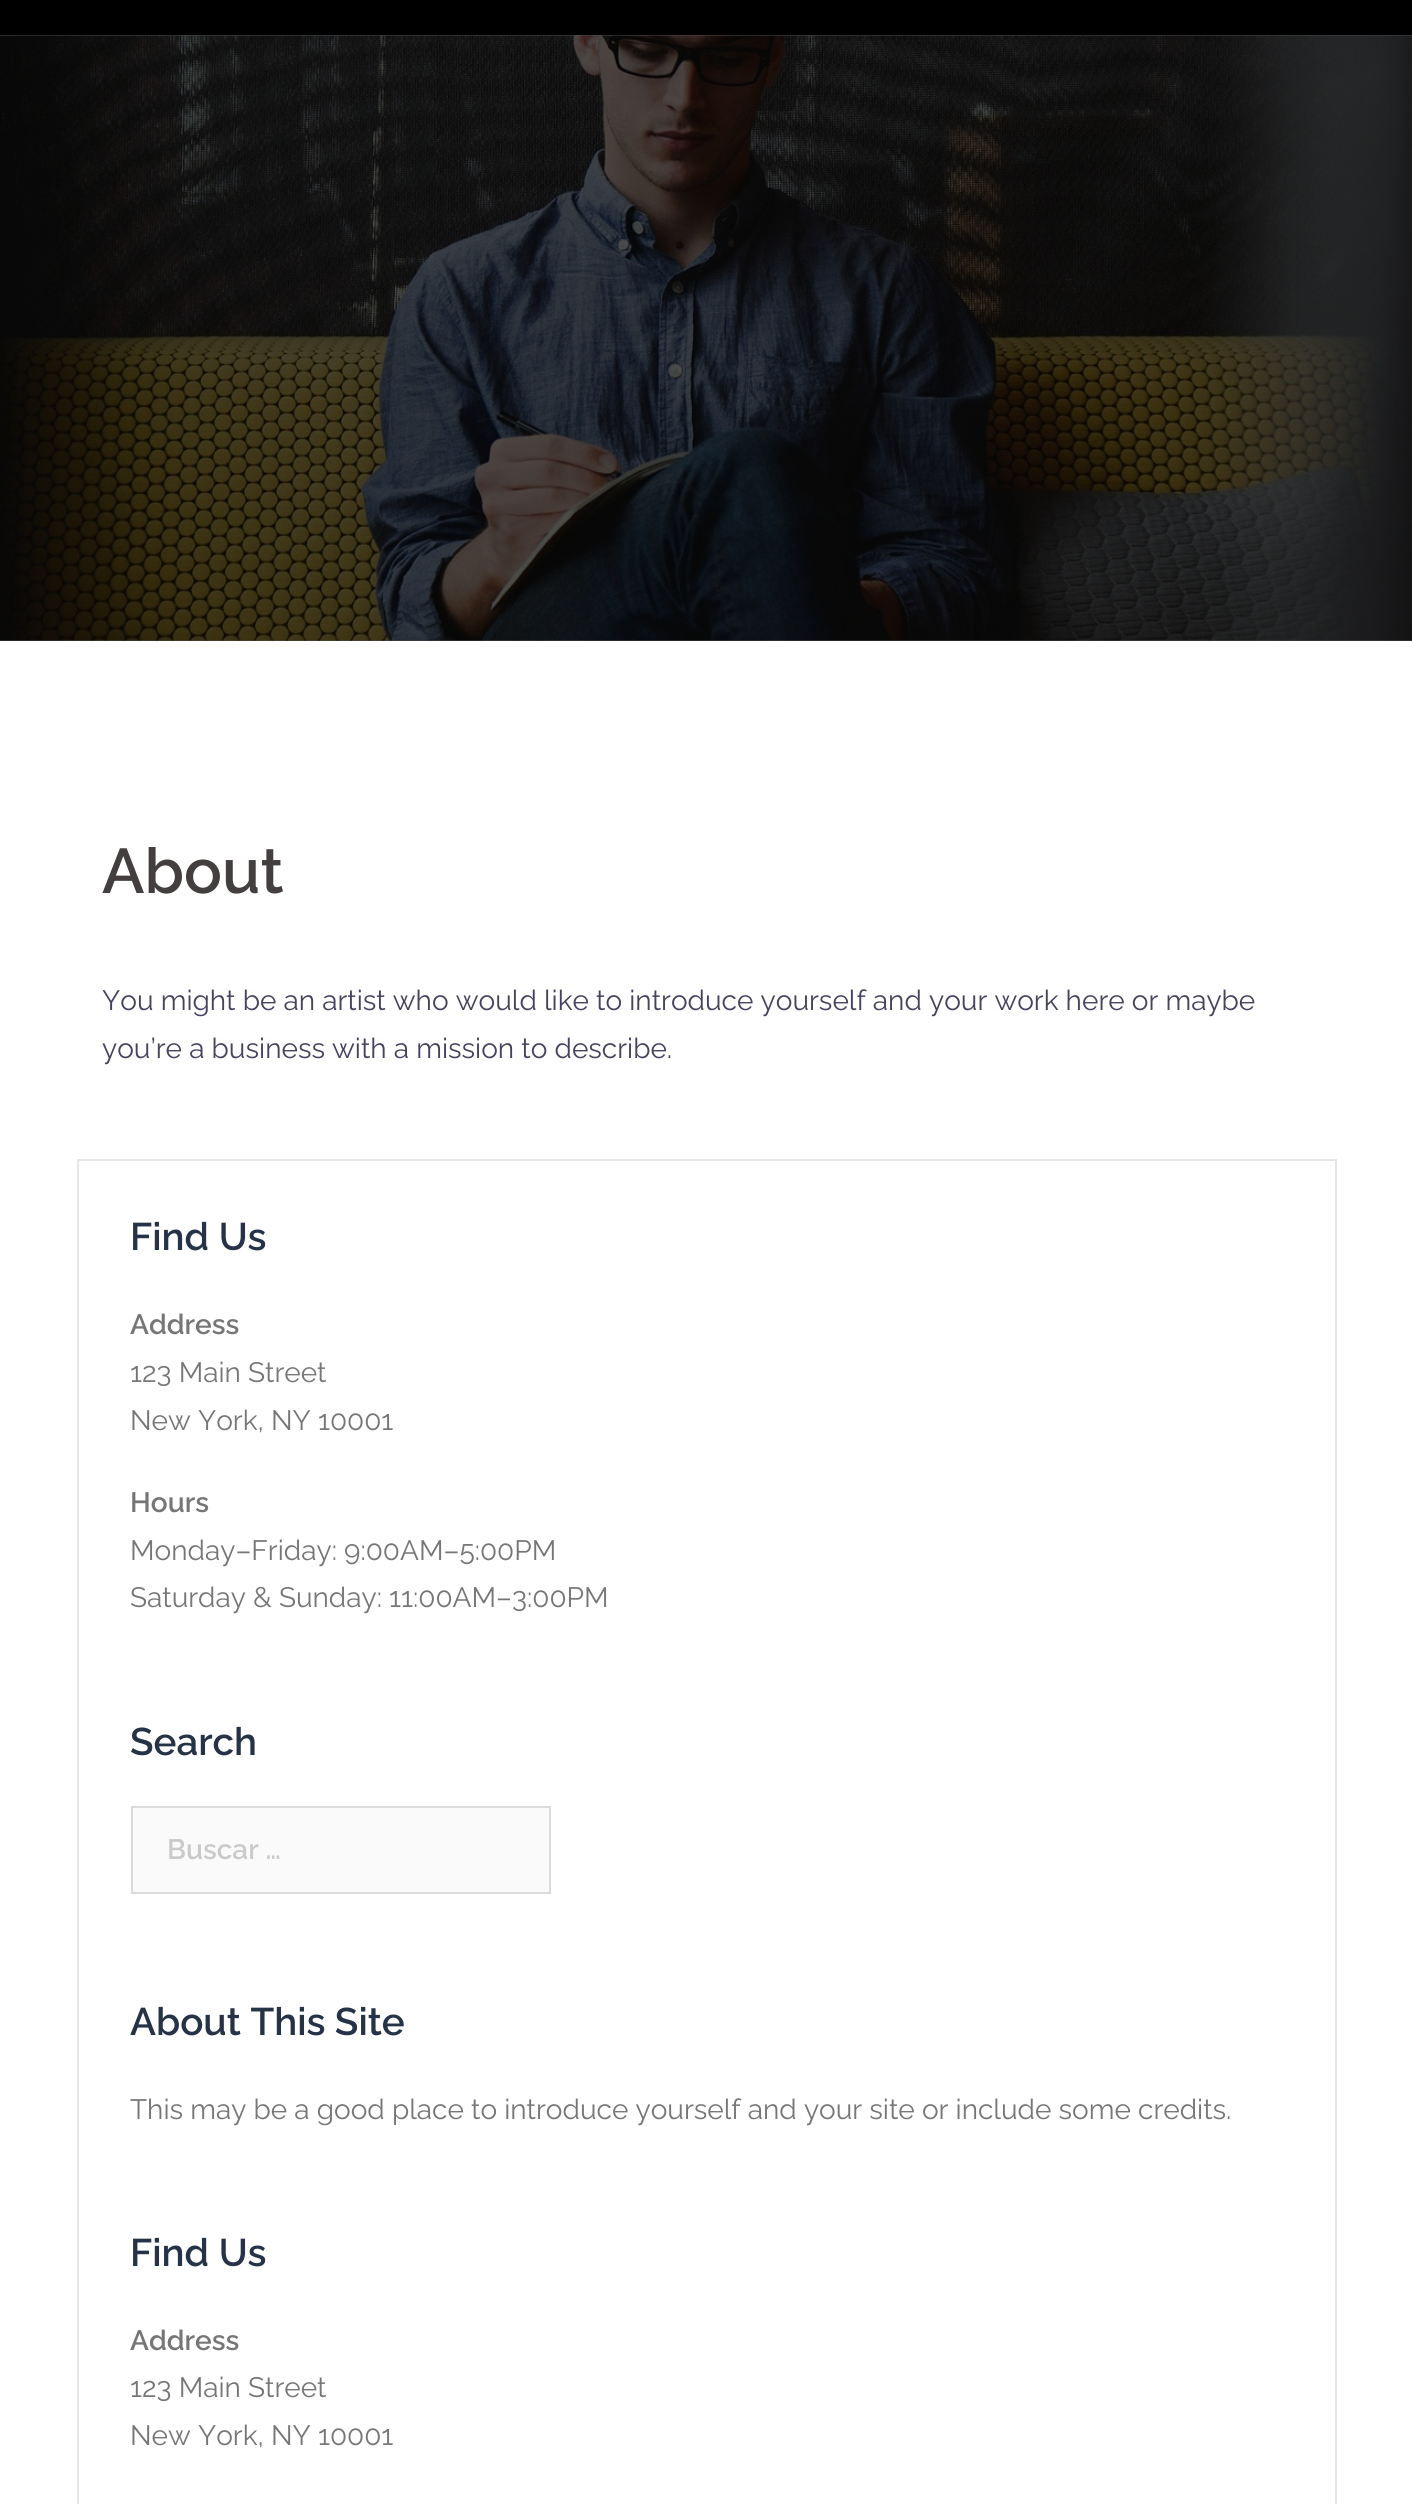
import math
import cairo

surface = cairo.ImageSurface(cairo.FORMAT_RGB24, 1412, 2504)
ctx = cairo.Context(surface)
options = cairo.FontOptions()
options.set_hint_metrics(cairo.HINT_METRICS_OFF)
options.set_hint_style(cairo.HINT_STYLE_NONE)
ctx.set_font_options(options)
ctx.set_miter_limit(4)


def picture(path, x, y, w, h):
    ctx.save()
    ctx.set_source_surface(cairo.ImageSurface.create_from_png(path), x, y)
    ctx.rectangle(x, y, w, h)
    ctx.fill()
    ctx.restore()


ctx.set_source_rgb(1, 1, 1)
ctx.paint()
ctx.set_source_rgb(0.302, 0.302, 0.302)
ctx.rectangle(0, 35, 1412, 606)
ctx.fill()
ctx.set_source_rgb(0, 0, 0)
ctx.rectangle(0, 0, 1412, 35)
ctx.fill()
picture("img1.png", 0, 35, 1412, 606)
ctx.select_font_face("Raleway SemiBold")
ctx.set_font_size(63)
ctx.set_source_rgb(0.267, 0.247, 0.247)
ctx.move_to(102, 893)
ctx.show_text("About")
ctx.select_font_face("Raleway")
ctx.set_font_size(28)
ctx.set_source_rgb(0.278, 0.259, 0.365)
ctx.move_to(102, 1010)
ctx.show_text("You might be an artist who would like to introduce yourself and your work here or maybe")
ctx.move_to(102, 1058)
ctx.show_text("you’re a business with a mission to describe.")
ctx.rectangle(78, 1160, 1258, 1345)
ctx.set_source_rgb(0.902, 0.902, 0.902)
ctx.stroke()
ctx.select_font_face("Raleway SemiBold")
ctx.set_font_size(38.5)
ctx.set_source_rgb(0.149, 0.196, 0.275)
ctx.move_to(130, 1250)
ctx.show_text("Find Us")
ctx.set_font_size(28)
ctx.set_source_rgb(0.463, 0.463, 0.463)
ctx.move_to(130, 1334)
ctx.show_text("Address")
ctx.select_font_face("Raleway")
ctx.move_to(130, 1382)
ctx.show_text("123 Main Street")
ctx.move_to(130, 1430)
ctx.show_text("New York, NY 10001")
ctx.select_font_face("Raleway SemiBold")
ctx.move_to(130, 1512)
ctx.show_text("Hours")
ctx.select_font_face("Raleway")
ctx.move_to(130, 1560)
ctx.show_text("Monday–Friday: 9:00AM–5:00PM")
ctx.move_to(130, 1607)
ctx.show_text("Saturday & Sunday: 11:00AM–3:00PM")
ctx.select_font_face("Raleway SemiBold")
ctx.set_font_size(38.5)
ctx.set_source_rgb(0.149, 0.196, 0.275)
ctx.move_to(130, 1755)
ctx.show_text("Search")
ctx.set_source_rgb(0.98, 0.98, 0.98)
ctx.rectangle(132, 1807, 418, 86)
ctx.fill_preserve()
ctx.set_source_rgb(0.859, 0.859, 0.859)
ctx.stroke()
ctx.set_font_size(28)
ctx.set_source_rgb(0.792, 0.792, 0.792)
ctx.move_to(167, 1859)
ctx.show_text("Buscar …")
ctx.set_font_size(38.5)
ctx.set_source_rgb(0.149, 0.196, 0.275)
ctx.move_to(130, 2035)
ctx.show_text("About This Site")
ctx.select_font_face("Raleway")
ctx.set_font_size(28)
ctx.set_source_rgb(0.463, 0.463, 0.463)
ctx.move_to(130, 2119)
ctx.show_text("This may be a good place to introduce yourself and your site or include some credits.")
ctx.select_font_face("Raleway SemiBold")
ctx.set_font_size(38.5)
ctx.set_source_rgb(0.149, 0.196, 0.275)
ctx.move_to(130, 2266)
ctx.show_text("Find Us")
ctx.set_font_size(28)
ctx.set_source_rgb(0.463, 0.463, 0.463)
ctx.move_to(130, 2350)
ctx.show_text("Address")
ctx.select_font_face("Raleway")
ctx.move_to(130, 2397)
ctx.show_text("123 Main Street")
ctx.move_to(130, 2445)
ctx.show_text("New York, NY 10001")
surface.write_to_png("page.png")
